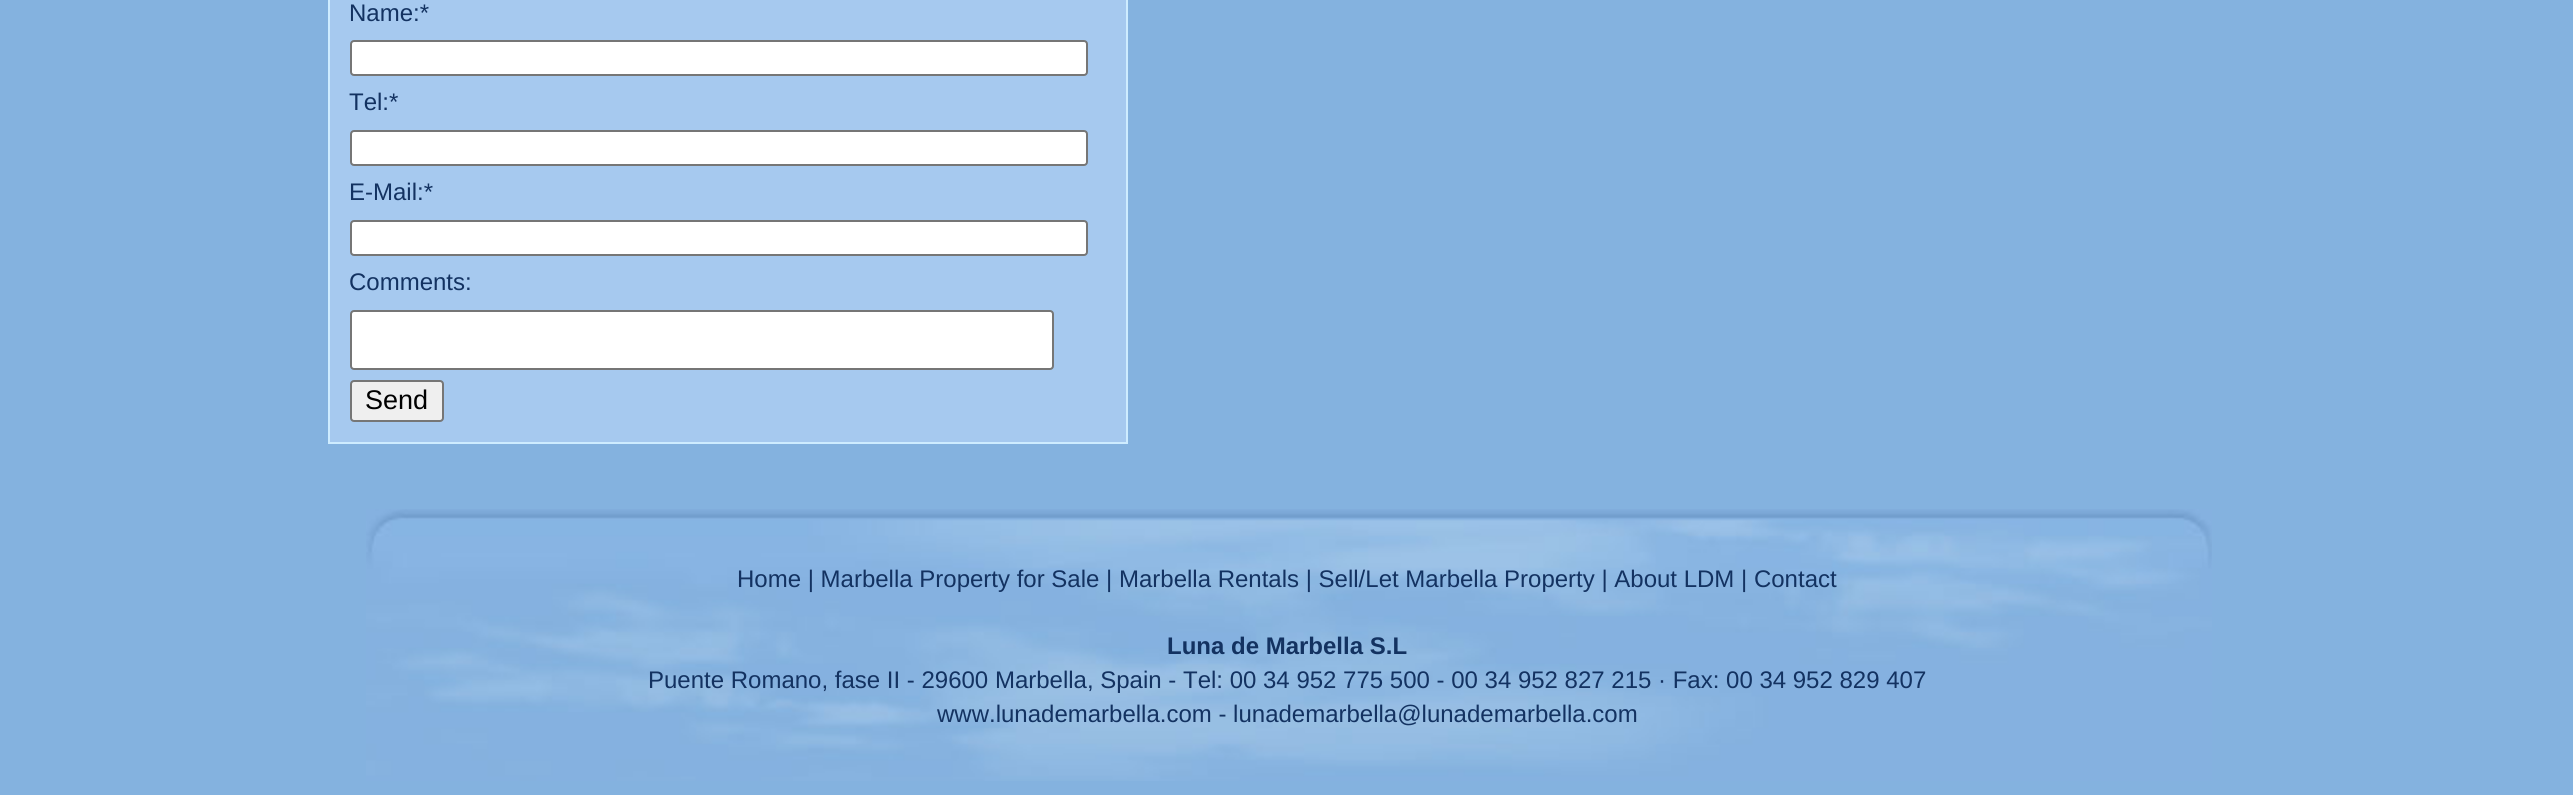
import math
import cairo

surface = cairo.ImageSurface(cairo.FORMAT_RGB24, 2573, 795)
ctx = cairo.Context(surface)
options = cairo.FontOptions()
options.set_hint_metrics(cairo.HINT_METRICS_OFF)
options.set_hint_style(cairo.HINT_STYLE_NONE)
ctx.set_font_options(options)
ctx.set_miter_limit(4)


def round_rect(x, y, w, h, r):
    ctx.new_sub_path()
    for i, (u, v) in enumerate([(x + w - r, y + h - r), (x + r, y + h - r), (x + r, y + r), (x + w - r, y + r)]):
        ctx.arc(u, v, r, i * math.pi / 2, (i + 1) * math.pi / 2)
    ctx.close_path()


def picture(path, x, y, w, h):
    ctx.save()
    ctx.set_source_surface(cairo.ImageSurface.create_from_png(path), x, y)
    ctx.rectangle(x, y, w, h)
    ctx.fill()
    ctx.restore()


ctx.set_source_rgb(0.518, 0.698, 0.875)
ctx.paint()
ctx.set_source_rgb(0.651, 0.788, 0.937)
ctx.rectangle(329, -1, 798, 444)
ctx.fill_preserve()
ctx.set_source_rgb(0.808, 0.925, 1)
ctx.stroke()
ctx.select_font_face("Liberation Sans")
ctx.set_font_size(24)
ctx.set_source_rgb(0.075, 0.196, 0.38)
ctx.move_to(349, 21)
ctx.show_text("Name:*")
ctx.set_source_rgb(1, 1, 1)
round_rect(351, 41, 736, 34, 3)
ctx.fill_preserve()
ctx.set_source_rgb(0.463, 0.463, 0.463)
ctx.stroke()
ctx.set_source_rgb(0.075, 0.196, 0.38)
ctx.move_to(349, 110)
ctx.show_text("Tel:*")
ctx.set_source_rgb(1, 1, 1)
round_rect(351, 131, 736, 34, 3)
ctx.fill_preserve()
ctx.set_source_rgb(0.463, 0.463, 0.463)
ctx.stroke()
ctx.set_source_rgb(0.075, 0.196, 0.38)
ctx.move_to(349, 200)
ctx.show_text("E-Mail:*")
ctx.set_source_rgb(1, 1, 1)
round_rect(351, 221, 736, 34, 3)
ctx.fill_preserve()
ctx.set_source_rgb(0.463, 0.463, 0.463)
ctx.stroke()
ctx.set_source_rgb(0.075, 0.196, 0.38)
ctx.move_to(349, 290)
ctx.show_text("Comments:")
ctx.set_source_rgb(1, 1, 1)
round_rect(351, 311, 702, 58, 3)
ctx.fill_preserve()
ctx.set_source_rgb(0.463, 0.463, 0.463)
ctx.stroke()
ctx.set_source_rgb(0.937, 0.937, 0.937)
round_rect(351, 381, 92, 40, 3)
ctx.fill_preserve()
ctx.set_source_rgb(0.463, 0.463, 0.463)
ctx.stroke()
ctx.set_font_size(27)
ctx.set_source_rgb(0, 0, 0)
ctx.move_to(365, 409)
ctx.show_text("Send")
picture("img1.png", 366, 509, 1846, 272)
ctx.set_font_size(24)
ctx.set_source_rgb(0.075, 0.196, 0.38)
ctx.move_to(737, 587)
ctx.show_text("Home | Marbella Property for Sale | Marbella Rentals | Sell/Let Marbella Property | About LDM | Contact")
ctx.select_font_face("Liberation Sans", cairo.FONT_SLANT_NORMAL, cairo.FONT_WEIGHT_BOLD)
ctx.move_to(1167, 654)
ctx.show_text("Luna de Marbella S.L")
ctx.select_font_face("Liberation Sans")
ctx.move_to(648, 688)
ctx.show_text("Puente Romano, fase II - 29600 Marbella, Spain - Tel: 00 34 952 775 500 - 00 34 952 827 215 · Fax: 00 34 952 829 407")
ctx.move_to(937, 722)
ctx.show_text("www.lunademarbella.com - lunademarbella@lunademarbella.com")
surface.write_to_png("page.png")
